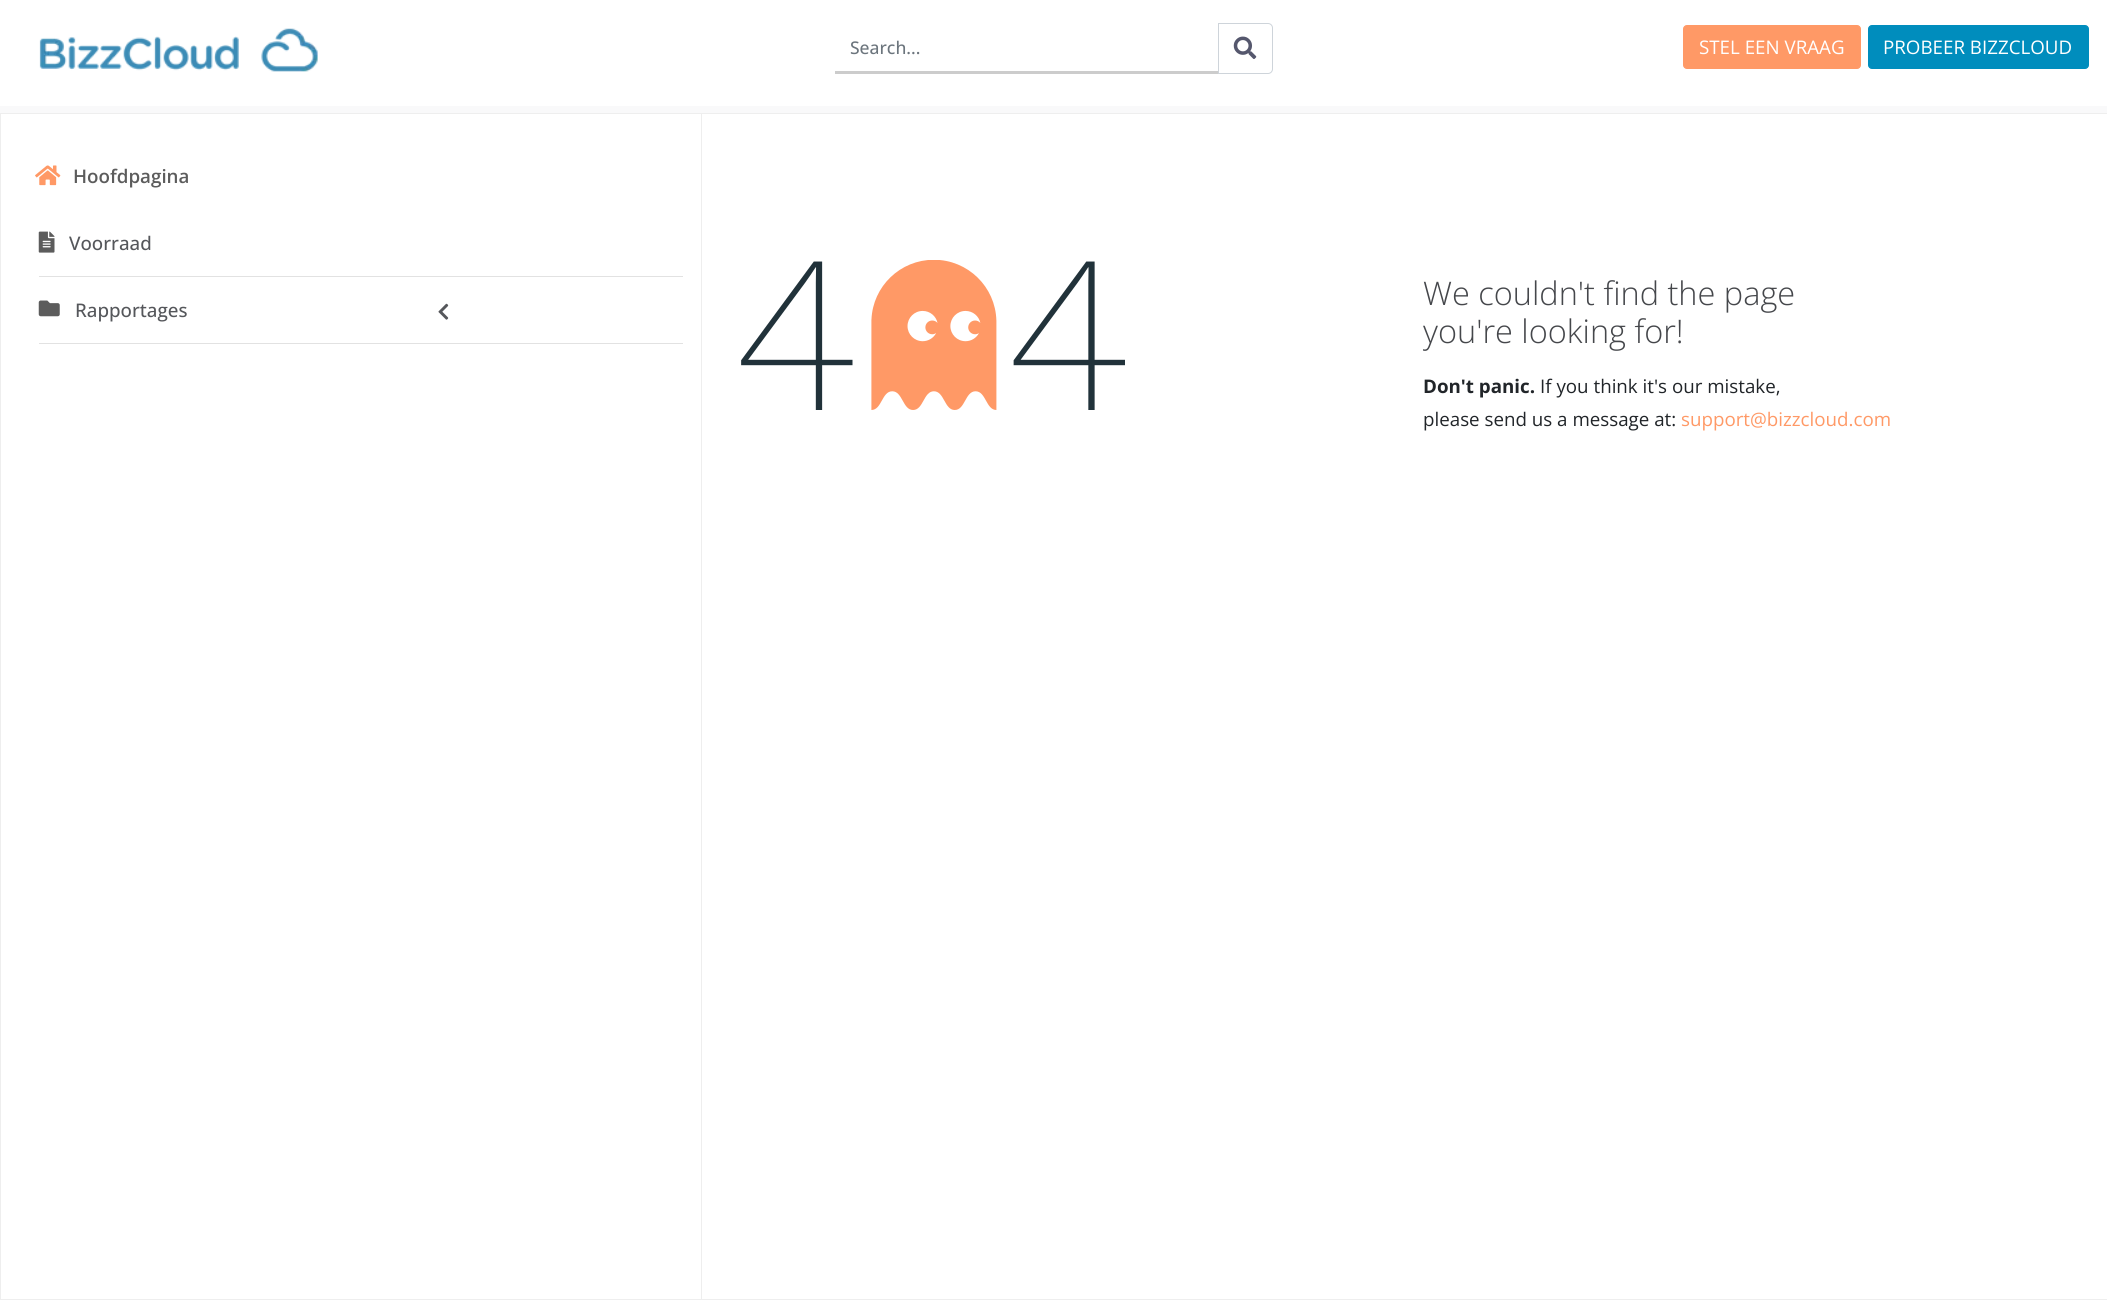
import math
import cairo

surface = cairo.ImageSurface(cairo.FORMAT_RGB24, 2107, 1300)
ctx = cairo.Context(surface)
options = cairo.FontOptions()
options.set_hint_metrics(cairo.HINT_METRICS_OFF)
options.set_hint_style(cairo.HINT_STYLE_NONE)
ctx.set_font_options(options)
ctx.set_miter_limit(4)


def round_rect(x, y, w, h, r):
    ctx.new_sub_path()
    for i, (u, v) in enumerate([(x + w - r, y + h - r), (x + r, y + h - r), (x + r, y + r), (x + w - r, y + r)]):
        ctx.arc(u, v, r, i * math.pi / 2, (i + 1) * math.pi / 2)
    ctx.close_path()


def picture(path, x, y, w, h):
    ctx.save()
    ctx.set_source_surface(cairo.ImageSurface.create_from_png(path), x, y)
    ctx.rectangle(x, y, w, h)
    ctx.fill()
    ctx.restore()


ctx.set_source_rgb(0.973, 0.976, 0.98)
ctx.paint()
ctx.set_source_rgb(1, 1, 1)
ctx.rectangle(0, 0, 2107, 106)
ctx.fill()
picture("img1.png", 39, 28, 279, 44)
ctx.set_source_rgb(0.8, 0.8, 0.8)
ctx.rectangle(835, 71, 384, 3)
ctx.fill()
ctx.select_font_face("Open Sans Medium")
ctx.set_font_size(17.5)
ctx.set_source_rgb(0.424, 0.459, 0.49)
ctx.move_to(850, 54)
ctx.show_text("Search...")
ctx.set_source_rgb(1, 1, 1)
ctx.new_path()
ctx.move_to(1218.5, 23.5)
ctx.line_to(1268, 23.5)
ctx.curve_to(1270.5, 23.5, 1272.5, 25.5, 1272.5, 28)
ctx.line_to(1272.5, 69)
ctx.curve_to(1272.5, 71.5, 1270.5, 73.5, 1268, 73.5)
ctx.line_to(1218.5, 73.5)
ctx.close_path()
ctx.fill_preserve()
ctx.set_source_rgb(0.808, 0.831, 0.855)
ctx.set_line_width(1)
ctx.stroke()
picture("img2.png", 1233, 36, 24, 23)
ctx.set_source_rgb(1, 0.6, 0.4)
round_rect(1683.5, 25.5, 177, 43, 3.5)
ctx.fill_preserve()
ctx.stroke()
ctx.select_font_face("Open Sans")
ctx.set_font_size(18.75)
ctx.set_source_rgb(1, 1, 1)
ctx.move_to(1699, 54)
ctx.show_text("STEL EEN VRAAG")
ctx.set_source_rgb(0, 0.553, 0.741)
round_rect(1868.5, 25.5, 220, 43, 3.5)
ctx.fill_preserve()
ctx.stroke()
ctx.set_source_rgb(1, 1, 1)
ctx.move_to(1883, 54)
ctx.show_text("PROBEER BIZZCLOUD")
ctx.rectangle(0.5, 113.5, 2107, 1186)
ctx.fill_preserve()
ctx.set_source_rgb(0.933, 0.933, 0.933)
ctx.stroke()
ctx.rectangle(701, 114, 1, 1185)
ctx.fill()
picture("img3.png", 35, 165, 26, 21)
ctx.select_font_face("Open Sans SemiBold")
ctx.set_source_rgb(0.361, 0.361, 0.361)
ctx.move_to(73, 183)
ctx.show_text("Hoofdpagina")
ctx.set_source_rgb(0.886, 0.886, 0.886)
ctx.rectangle(39, 276, 644, 1)
ctx.fill()
picture("img4.png", 38, 231, 17, 22)
ctx.select_font_face("Open Sans Medium")
ctx.set_source_rgb(0.333, 0.341, 0.357)
ctx.move_to(69, 250)
ctx.show_text("Voorraad")
ctx.set_source_rgb(0.886, 0.886, 0.886)
ctx.rectangle(39, 343, 644, 1)
ctx.fill()
picture("img5.png", 38, 300, 22, 17)
ctx.set_source_rgb(0.333, 0.341, 0.357)
ctx.move_to(75, 317)
ctx.show_text("Rapportages")
picture("img6.png", 438, 303, 11, 17)
picture("img7.png", 741, 260, 384, 150)
ctx.select_font_face("Open Sans Light")
ctx.set_font_size(32.5)
ctx.set_source_rgb(0.271, 0.278, 0.294)
ctx.move_to(1423, 305)
ctx.show_text("We couldn't find the page")
ctx.move_to(1423, 343)
ctx.show_text("you're looking for!")
ctx.select_font_face("Open Sans", cairo.FONT_SLANT_NORMAL, cairo.FONT_WEIGHT_BOLD)
ctx.set_font_size(18.75)
ctx.set_source_rgb(0.129, 0.145, 0.161)
ctx.move_to(1423, 393)
ctx.show_text("Don't panic.")
ctx.select_font_face("Open Sans")
ctx.move_to(1540, 393)
ctx.show_text("If you think it's our mistake,")
ctx.move_to(1423, 426)
ctx.show_text("please send us a message at:")
ctx.set_source_rgb(1, 0.6, 0.4)
ctx.move_to(1681, 426)
ctx.show_text("support@bizzcloud.com")
surface.write_to_png("page.png")
